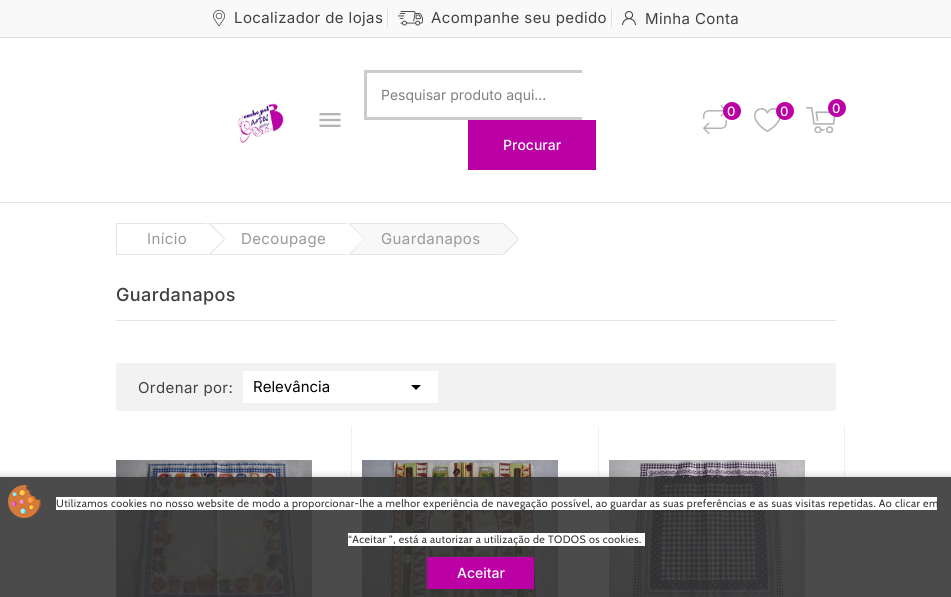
import math
import cairo

surface = cairo.ImageSurface(cairo.FORMAT_RGB24, 951, 597)
ctx = cairo.Context(surface)
options = cairo.FontOptions()
options.set_hint_metrics(cairo.HINT_METRICS_OFF)
options.set_hint_style(cairo.HINT_STYLE_NONE)
ctx.set_font_options(options)
ctx.set_miter_limit(4)


def spaced_text(x, y, s, letter, word):
    ctx.move_to(x, y)
    for ch in s:
        ctx.show_text(ch)
        ctx.rel_move_to(letter + word * (ch == ' '), 0)


def round_rect(x, y, w, h, r):
    ctx.new_sub_path()
    for i, (u, v) in enumerate([(x + w - r, y + h - r), (x + r, y + h - r), (x + r, y + r), (x + w - r, y + r)]):
        ctx.arc(u, v, r, i * math.pi / 2, (i + 1) * math.pi / 2)
    ctx.close_path()


def shadow(x, y, w, h, r, blur, alpha):
    ctx.push_group_with_content(cairo.CONTENT_ALPHA)
    ctx.set_operator(cairo.OPERATOR_SOURCE)
    for i in range(15, -16, -2):
        e = blur * i / 6
        if min(w, h) + 2 * e > 0:
            ctx.set_source_rgba(0, 0, 0, alpha * math.erfc((i - 1) / 8.5) / 2)
            round_rect(x - e, y - e, w + 2 * e, h + 2 * e, max(0, min(r + e + blur * .6, min(w, h) / 2 + e)))
            ctx.fill()
    ctx.mask(ctx.pop_group())


def picture(path, x, y, w, h):
    ctx.save()
    ctx.set_source_surface(cairo.ImageSurface.create_from_png(path), x, y)
    ctx.rectangle(x, y, w, h)
    ctx.fill()
    ctx.restore()


ctx.set_source_rgb(1, 1, 1)
ctx.paint()
ctx.set_source_rgb(0.976, 0.976, 0.976)
ctx.rectangle(0, 0, 951, 37)
ctx.fill()
picture("img1.png", 213, 10, 12, 17)
ctx.select_font_face("Inter")
ctx.set_font_size(15)
ctx.set_source_rgb(0.251, 0.251, 0.251)
spaced_text(234, 23, "Localizador de lojas", 0.4, 0)
ctx.set_source_rgb(0.878, 0.878, 0.878)
ctx.rectangle(387, 9, 1, 18)
ctx.fill()
picture("img2.png", 398, 11, 25, 15)
ctx.set_source_rgb(0.251, 0.251, 0.251)
spaced_text(431, 23, "Acompanhe seu pedido", 0.4, 0)
ctx.set_source_rgb(0.878, 0.878, 0.878)
ctx.rectangle(611, 9, 1, 18)
ctx.fill()
picture("img3.png", 622, 11, 14, 14)
ctx.set_source_rgb(0.251, 0.251, 0.251)
spaced_text(645, 24, "Minha Conta", 0.4, 0)
ctx.set_source_rgb(0.878, 0.878, 0.878)
ctx.rectangle(0, 37, 951, 1)
ctx.fill()
ctx.set_source_rgb(0.898, 0.898, 0.898)
ctx.rectangle(0, 202, 951, 1)
ctx.fill()
picture("img4.png", 237, 103, 47, 40)
picture("img5.png", 319, 113, 22, 14)
ctx.set_source_rgb(0.8, 0.8, 0.8)
ctx.rectangle(364, 70, 218, 3)
ctx.fill()
ctx.rectangle(364, 117, 218, 3)
ctx.fill()
ctx.rectangle(364, 70, 3, 50)
ctx.fill()
ctx.set_font_size(14)
ctx.set_source_rgb(0.502, 0.502, 0.502)
ctx.move_to(381, 100)
ctx.show_text("Pesquisar produto aqui...")
ctx.set_source_rgb(0.733, 0, 0.647)
ctx.rectangle(468, 120, 128, 50)
ctx.fill()
ctx.select_font_face("Inter Medium")
ctx.set_source_rgb(1, 1, 1)
ctx.move_to(503, 150)
ctx.show_text("Procurar")
picture("img6.png", 703, 105, 24, 29)
ctx.set_source_rgb(0.733, 0, 0.647)
ctx.arc(732, 111, 9, 0, 2 * math.pi)
ctx.fill()
ctx.set_font_size(13)
ctx.set_source_rgb(1, 1, 1)
spaced_text(727, 116, "0", 0.4, 0)
picture("img7.png", 754, 108, 27, 24)
ctx.set_source_rgb(0.733, 0, 0.647)
ctx.arc(785, 111, 9, 0, 2 * math.pi)
ctx.fill()
ctx.set_source_rgb(1, 1, 1)
spaced_text(780, 116, "0", 0.4, 0)
picture("img8.png", 806, 107, 30, 26)
ctx.set_source_rgb(0.733, 0, 0.647)
ctx.arc(837, 108, 9, 0, 2 * math.pi)
ctx.fill()
ctx.set_source_rgb(1, 1, 1)
spaced_text(832, 113, "0", 0.4, 0)
ctx.rectangle(116.5, 223.5, 385, 31)
ctx.set_source_rgb(0.898, 0.898, 0.898)
ctx.set_line_width(1)
ctx.stroke()
ctx.select_font_face("Inter")
ctx.set_font_size(15)
ctx.set_source_rgb(0.6, 0.6, 0.6)
spaced_text(147, 244, "Início", 0.4, 0)
ctx.set_source_rgb(1, 1, 1)
ctx.new_path()
ctx.move_to(210, 223.5)
ctx.line_to(224, 237.5)
ctx.curve_to(225, 238.5, 225, 239.5, 224, 240.5)
ctx.line_to(210, 254.5)
ctx.curve_to(209.5, 255.5, 208, 255.5, 207, 254.5)
ctx.line_to(193, 240.5)
ctx.curve_to(192.5, 239.5, 192.5, 238.5, 193, 237.5)
ctx.line_to(207, 223.5)
ctx.curve_to(208, 222.5, 209.5, 222.5, 210, 223.5)
ctx.close_path()
ctx.fill()
ctx.set_source_rgb(0.898, 0.898, 0.898)
ctx.new_path()
ctx.move_to(209.5, 222.5)
ctx.line_to(225, 238.5)
ctx.line_to(224, 239)
ctx.line_to(208.5, 223.5)
ctx.close_path()
ctx.move_to(224, 239)
ctx.line_to(225, 239.5)
ctx.line_to(209.5, 255.5)
ctx.line_to(208.5, 254.5)
ctx.close_path()
ctx.fill()
ctx.set_source_rgb(0.6, 0.6, 0.6)
spaced_text(241, 244, "Decoupage", 0.4, 0)
ctx.set_source_rgb(0.969, 0.969, 0.969)
ctx.rectangle(351, 224, 150, 30)
ctx.fill()
ctx.set_source_rgb(1, 1, 1)
ctx.new_path()
ctx.move_to(350, 223.5)
ctx.line_to(364, 237.5)
ctx.curve_to(364.5, 238.5, 364.5, 239.5, 364, 240.5)
ctx.line_to(350, 254.5)
ctx.curve_to(349, 255.5, 348, 255.5, 347, 254.5)
ctx.line_to(333, 240.5)
ctx.curve_to(332, 239.5, 332, 238.5, 333, 237.5)
ctx.line_to(347, 223.5)
ctx.curve_to(348, 222.5, 349, 222.5, 350, 223.5)
ctx.close_path()
ctx.fill()
ctx.set_source_rgb(0.898, 0.898, 0.898)
ctx.new_path()
ctx.move_to(349, 222.5)
ctx.line_to(364.5, 238.5)
ctx.line_to(364, 239)
ctx.line_to(348.5, 223.5)
ctx.close_path()
ctx.move_to(364, 239)
ctx.line_to(364.5, 239.5)
ctx.line_to(349, 255.5)
ctx.line_to(348.5, 254.5)
ctx.close_path()
ctx.fill()
ctx.set_source_rgb(0.6, 0.6, 0.6)
spaced_text(381, 244, "Guardanapos", 0.4, 0)
ctx.set_source_rgb(0.969, 0.969, 0.969)
ctx.new_path()
ctx.move_to(504, 223.5)
ctx.line_to(518, 237.5)
ctx.curve_to(519, 238.5, 519, 239.5, 518, 240.5)
ctx.line_to(504, 254.5)
ctx.curve_to(503, 255.5, 502, 255.5, 501, 254.5)
ctx.line_to(487, 240.5)
ctx.curve_to(486, 239.5, 486, 238.5, 487, 237.5)
ctx.line_to(501, 223.5)
ctx.curve_to(502, 222.5, 503, 222.5, 504, 223.5)
ctx.close_path()
ctx.fill()
ctx.set_source_rgb(0.898, 0.898, 0.898)
ctx.new_path()
ctx.move_to(503.5, 222.5)
ctx.line_to(519, 238.5)
ctx.line_to(518, 239)
ctx.line_to(502.5, 223.5)
ctx.close_path()
ctx.move_to(518, 239)
ctx.line_to(519, 239.5)
ctx.line_to(503.5, 255.5)
ctx.line_to(502.5, 254.5)
ctx.close_path()
ctx.fill()
ctx.rectangle(116, 320, 720, 1)
ctx.fill()
ctx.select_font_face("Inter Medium")
ctx.set_font_size(18)
ctx.set_source_rgb(0.251, 0.251, 0.251)
spaced_text(116, 301, "Guardanapos", 0.4, 0)
ctx.set_source_rgb(0.949, 0.949, 0.949)
ctx.rectangle(116, 363, 720, 48)
ctx.fill()
ctx.select_font_face("Inter")
ctx.set_font_size(15)
ctx.set_source_rgb(0.251, 0.251, 0.251)
spaced_text(138, 393, "Ordenar por:", 0.4, 0)
ctx.set_source_rgb(1, 1, 1)
ctx.rectangle(243, 371, 195, 32)
ctx.fill()
ctx.set_source_rgb(0, 0, 0)
ctx.move_to(253, 392)
ctx.show_text("Relevância")
ctx.new_path()
ctx.move_to(411, 385)
ctx.line_to(421, 385)
ctx.line_to(416, 390)
ctx.close_path()
ctx.fill()
picture("img9.png", 116, 460, 196, 137)
ctx.set_source_rgb(0.941, 0.941, 0.941)
ctx.rectangle(351, 426, 1, 171)
ctx.fill()
picture("img10.png", 362, 460, 196, 137)
ctx.rectangle(598, 426, 1, 171)
ctx.fill()
picture("img11.png", 609, 460, 196, 137)
ctx.rectangle(844, 426, 1, 171)
ctx.fill()
ctx.save()
ctx.rectangle(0, 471, 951, 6)
ctx.clip()
ctx.set_source_rgb(0, 0, 0)
shadow(0, 477, 951, 120, 0, 5, 0.2)
ctx.restore()
ctx.set_source_rgba(0.2, 0.2, 0.2, 0.88)
ctx.rectangle(0, 477, 951, 120)
ctx.fill()
picture("img12.png", 8, 485, 33, 33)
ctx.set_source_rgb(1, 1, 1)
ctx.rectangle(56, 497, 881, 13)
ctx.fill()
ctx.select_font_face("Cabin")
ctx.set_font_size(10.67)
ctx.set_source_rgb(0.2, 0.2, 0.2)
spaced_text(56, 507, "Utilizamos cookies no nosso website de modo a proporcionar-lhe a melhor experiência de navegação possível, ao guardar as suas preferências e as suas visitas repetidas. Ao clicar em", 0.4, 0)
ctx.set_source_rgb(1, 1, 1)
ctx.rectangle(348, 533, 297, 13)
ctx.fill()
ctx.set_source_rgb(0.2, 0.2, 0.2)
spaced_text(348, 543, "“Aceitar ”, está a autorizar a utilização de TODOS os cookies.", 0.4, 0)
ctx.set_source_rgb(0.733, 0, 0.647)
ctx.rectangle(427, 557, 107, 32)
ctx.fill()
ctx.select_font_face("Inter Medium")
ctx.set_font_size(14)
ctx.set_source_rgb(1, 1, 1)
ctx.move_to(457, 578)
ctx.show_text("Aceitar")
surface.write_to_png("page.png")
